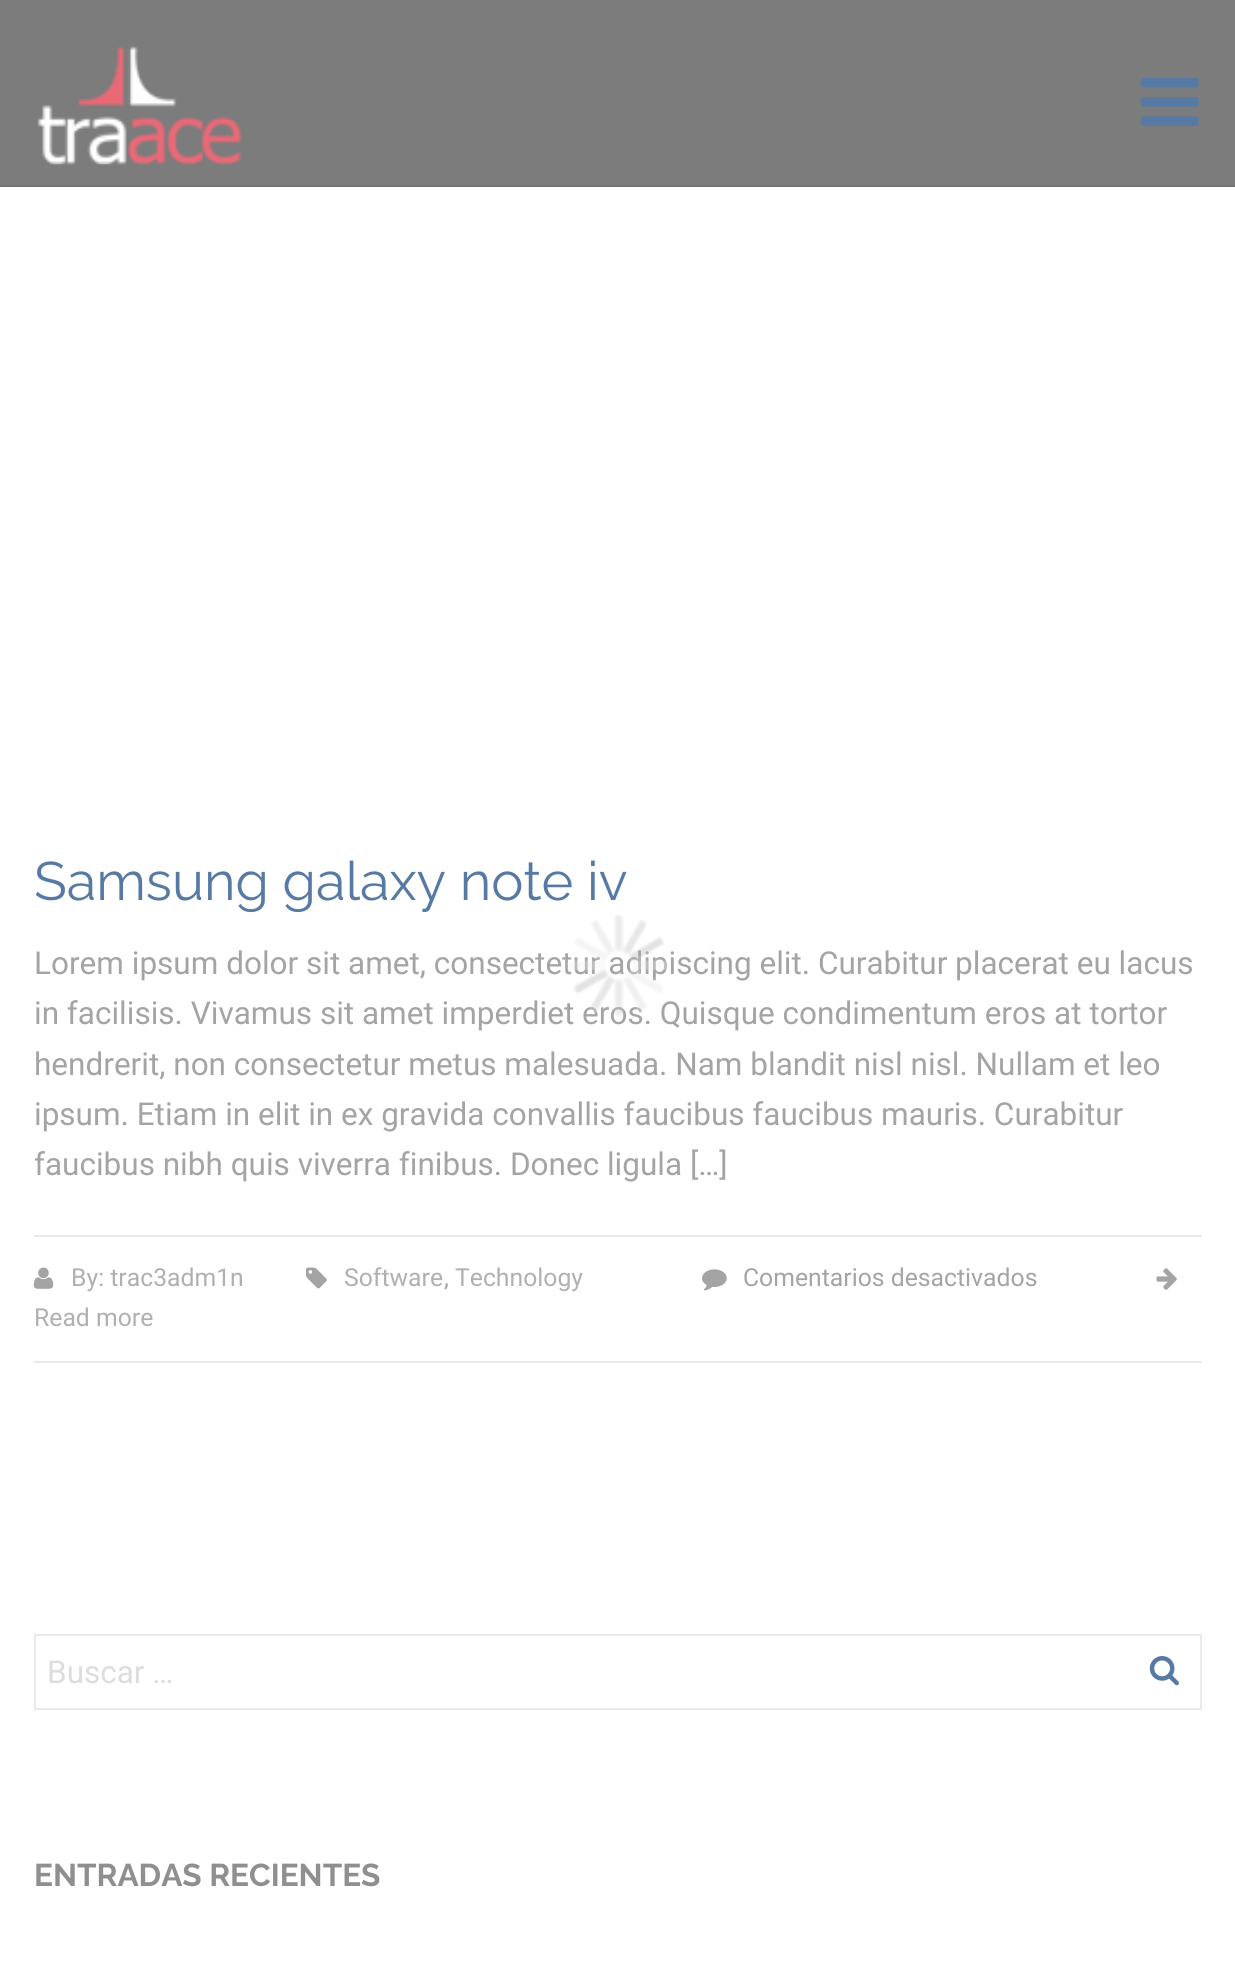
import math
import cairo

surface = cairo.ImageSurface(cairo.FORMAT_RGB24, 1235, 1974)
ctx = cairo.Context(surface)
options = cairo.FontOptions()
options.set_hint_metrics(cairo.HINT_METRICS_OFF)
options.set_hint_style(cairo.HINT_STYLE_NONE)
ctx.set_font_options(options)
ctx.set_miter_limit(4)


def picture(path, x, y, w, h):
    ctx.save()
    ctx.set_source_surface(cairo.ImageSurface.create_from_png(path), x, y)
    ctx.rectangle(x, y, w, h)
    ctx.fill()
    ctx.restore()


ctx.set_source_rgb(1, 1, 1)
ctx.paint()
ctx.set_source_rgb(0.486, 0.486, 0.486)
ctx.rectangle(0, 0, 1235, 185)
ctx.fill()
ctx.set_source_rgb(0.451, 0.451, 0.451)
ctx.rectangle(0, 185, 1235, 2)
ctx.fill()
picture("img1.png", 37, 46, 205, 119)
picture("img2.png", 1140, 77, 59, 49)
ctx.select_font_face("Raleway")
ctx.set_font_size(54)
ctx.set_source_rgb(0.341, 0.478, 0.647)
ctx.move_to(34, 900)
ctx.show_text("Samsung galaxy note iv")
ctx.select_font_face("Roboto")
ctx.set_font_size(31.5)
ctx.set_source_rgb(0.643, 0.643, 0.643)
ctx.move_to(34, 974)
ctx.show_text("Lorem ipsum dolor sit amet, consectetur adipiscing elit. Curabitur placerat eu lacus")
ctx.move_to(34, 1024)
ctx.show_text("in facilisis. Vivamus sit amet imperdiet eros. Quisque condimentum eros at tortor")
ctx.move_to(34, 1075)
ctx.show_text("hendrerit, non consectetur metus malesuada. Nam blandit nisl nisl. Nullam et leo")
ctx.move_to(34, 1125)
ctx.show_text("ipsum. Etiam in elit in ex gravida convallis faucibus faucibus mauris. Curabitur")
ctx.move_to(34, 1175)
ctx.show_text("faucibus nibh quis viverra finibus. Donec ligula […]")
ctx.set_source_rgb(0.914, 0.914, 0.914)
ctx.rectangle(34, 1235, 1168, 2)
ctx.fill()
ctx.rectangle(34, 1361, 1168, 2)
ctx.fill()
picture("img3.png", 33, 1267, 21, 22)
ctx.set_font_size(24.75)
ctx.set_source_rgb(0.69, 0.69, 0.69)
ctx.move_to(71, 1286)
ctx.show_text("By: trac3adm1n")
picture("img4.png", 306, 1267, 21, 22)
ctx.move_to(344, 1286)
ctx.show_text("Software")
ctx.set_source_rgb(0.643, 0.643, 0.643)
ctx.move_to(444, 1286)
ctx.show_text(",")
ctx.set_source_rgb(0.69, 0.69, 0.69)
ctx.move_to(455, 1286)
ctx.show_text("Technology")
picture("img5.png", 702, 1269, 25, 22)
ctx.set_source_rgb(0.643, 0.643, 0.643)
ctx.move_to(743, 1286)
ctx.show_text("Comentarios desactivados")
picture("img6.png", 1156, 1268, 21, 22)
ctx.set_source_rgb(0.69, 0.69, 0.69)
ctx.move_to(34, 1326)
ctx.show_text("Read more")
ctx.rectangle(35, 1635, 1166, 74)
ctx.set_source_rgb(0.914, 0.914, 0.914)
ctx.stroke()
ctx.set_font_size(31.5)
ctx.set_source_rgb(0.867, 0.867, 0.867)
ctx.move_to(47, 1683)
ctx.show_text("Buscar …")
picture("img7.png", 1149, 1656, 30, 30)
ctx.select_font_face("Raleway", cairo.FONT_SLANT_NORMAL, cairo.FONT_WEIGHT_BOLD)
ctx.set_source_rgb(0.561, 0.561, 0.561)
ctx.move_to(34, 1886)
ctx.show_text("ENTRADAS RECIENTES")
picture("img8.png", 566, 914, 105, 103)
surface.write_to_png("page.png")
